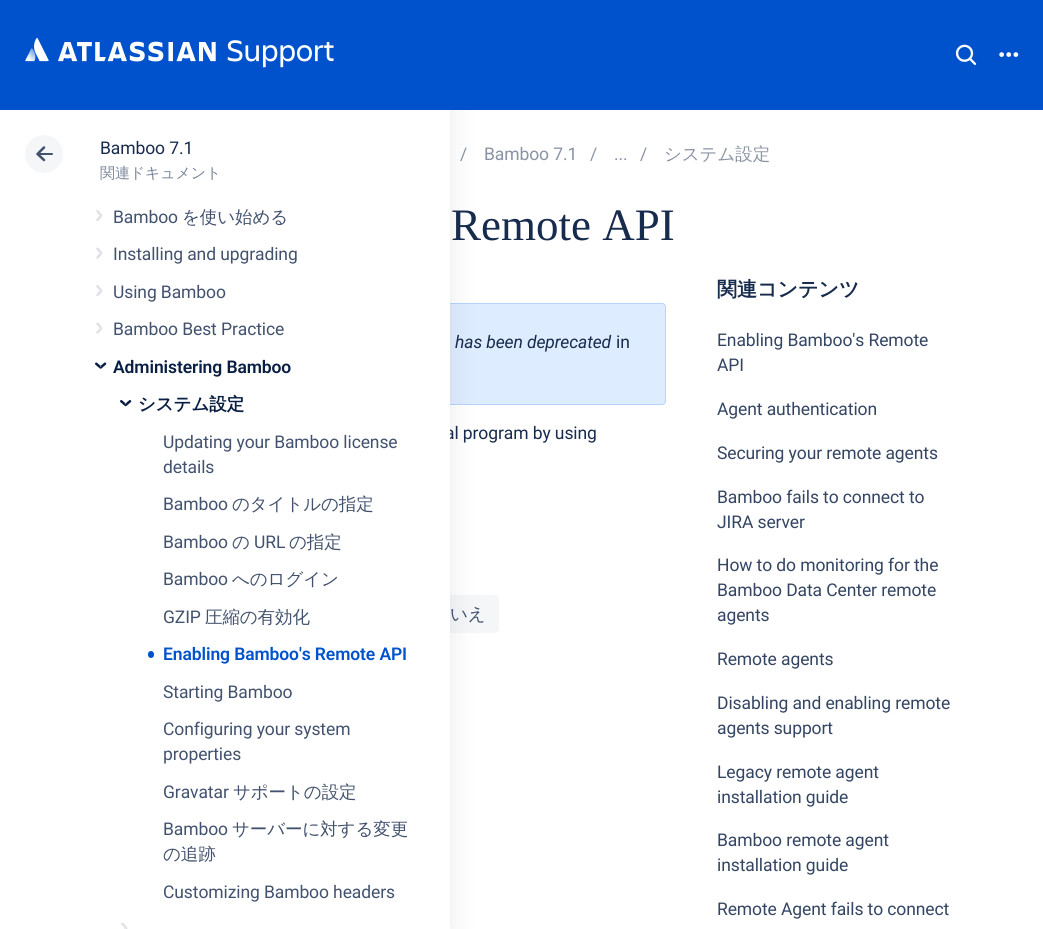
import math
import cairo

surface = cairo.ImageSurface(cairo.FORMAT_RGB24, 1043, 929)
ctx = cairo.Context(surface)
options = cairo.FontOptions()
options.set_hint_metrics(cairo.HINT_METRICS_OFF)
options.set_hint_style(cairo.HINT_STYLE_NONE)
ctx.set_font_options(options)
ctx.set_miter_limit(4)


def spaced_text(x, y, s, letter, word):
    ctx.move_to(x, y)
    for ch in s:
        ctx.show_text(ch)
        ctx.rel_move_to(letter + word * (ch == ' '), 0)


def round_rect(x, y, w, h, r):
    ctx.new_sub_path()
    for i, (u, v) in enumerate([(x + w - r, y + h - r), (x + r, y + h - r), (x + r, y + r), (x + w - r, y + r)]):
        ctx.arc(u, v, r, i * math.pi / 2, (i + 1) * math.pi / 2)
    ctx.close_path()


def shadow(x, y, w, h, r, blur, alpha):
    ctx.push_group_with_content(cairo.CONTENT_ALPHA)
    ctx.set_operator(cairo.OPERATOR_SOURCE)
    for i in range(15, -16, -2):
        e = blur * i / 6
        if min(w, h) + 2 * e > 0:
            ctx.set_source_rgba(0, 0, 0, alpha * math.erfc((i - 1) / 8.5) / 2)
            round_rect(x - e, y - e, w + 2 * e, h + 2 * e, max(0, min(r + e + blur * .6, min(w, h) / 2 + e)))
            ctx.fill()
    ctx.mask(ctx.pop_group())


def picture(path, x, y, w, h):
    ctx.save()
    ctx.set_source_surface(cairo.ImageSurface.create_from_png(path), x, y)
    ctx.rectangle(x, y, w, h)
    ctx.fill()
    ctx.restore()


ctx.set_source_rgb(1, 1, 1)
ctx.paint()
ctx.set_source_rgb(0.871, 0.922, 1)
round_rect(88.5, 303.5, 577, 101, 3.5)
ctx.fill_preserve()
ctx.set_source_rgb(0.702, 0.831, 1)
ctx.set_line_width(1)
ctx.stroke()
ctx.set_source_rgb(0.957, 0.961, 0.969)
ctx.new_path()
ctx.move_to(420, 595)
ctx.line_to(495, 595)
ctx.curve_to(497, 595, 499, 597, 499, 599)
ctx.line_to(499, 629)
ctx.curve_to(499, 631, 497, 633, 495, 633)
ctx.line_to(420, 633)
ctx.close_path()
ctx.fill()
ctx.set_source_rgb(0.086, 0.086, 0.086)
shadow(0, 0, 450, 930, 0, 12.5, 0.1)
ctx.set_source_rgb(0, 0.322, 0.8)
ctx.rectangle(0, 0, 1043, 110)
ctx.fill()
picture("img1.png", 25, 38, 309, 30)
picture("img2.png", 955, 44, 22, 21)
picture("img3.png", 999, 52, 20, 5)
ctx.select_font_face("Roboto")
ctx.set_font_size(17.5)
ctx.set_source_rgb(0.09, 0.169, 0.302)
spaced_text(445, 439, "al program by using", -0.1, 0)
ctx.set_source_rgb(1, 1, 1)
ctx.rectangle(0, 110, 450, 819)
ctx.fill()
ctx.set_source_rgb(0.957, 0.961, 0.969)
ctx.arc(44, 154, 19, 0, 2 * math.pi)
ctx.fill()
ctx.set_source_rgb(0.259, 0.322, 0.431)
round_rect(38, 153, 15, 2, 1)
ctx.fill()
ctx.new_path()
ctx.move_to(44, 160)
ctx.line_to(37.5, 154)
ctx.line_to(44, 147.5)
ctx.set_line_width(2.5)
ctx.set_line_cap(cairo.LINE_CAP_ROUND)
ctx.set_line_join(cairo.LINE_JOIN_ROUND)
ctx.stroke()
ctx.set_source_rgb(0.09, 0.169, 0.302)
spaced_text(100, 154, "Bamboo 7.1", -0.1, 0)
ctx.select_font_face("WenQuanYi Zen Hei Medium")
ctx.set_font_size(15)
ctx.set_source_rgb(0.478, 0.525, 0.604)
spaced_text(100, 178, "関連ドキュメント", -0.1, 0)
picture("img4.png", 96, 210, 7, 12)
ctx.select_font_face("Roboto")
ctx.set_font_size(17.5)
ctx.set_source_rgb(0.259, 0.322, 0.431)
spaced_text(113, 223, "Bamboo", -0.1, 0)
ctx.select_font_face("WenQuanYi Zen Hei Medium")
spaced_text(182, 223, "を使い始める", -0.1, 0)
picture("img5.png", 96, 247, 7, 12)
ctx.select_font_face("Roboto")
spaced_text(113, 260, "Installing and upgrading", -0.1, 0)
picture("img4.png", 96, 285, 7, 12)
spaced_text(113, 298, "Using Bamboo", -0.1, 0)
picture("img5.png", 96, 322, 7, 12)
spaced_text(113, 335, "Bamboo Best Practice", -0.1, 0)
picture("img6.png", 95, 362, 12, 7)
ctx.select_font_face("Roboto SemiBold")
ctx.set_source_rgb(0.035, 0.118, 0.259)
spaced_text(113, 373, "Administering Bamboo", -0.1, 0)
picture("img7.png", 120, 400, 12, 7)
ctx.select_font_face("WenQuanYi Zen Hei", cairo.FONT_SLANT_NORMAL, cairo.FONT_WEIGHT_BOLD)
spaced_text(138, 410, "システム設定", -0.1, 0)
ctx.select_font_face("Roboto")
ctx.set_source_rgb(0.259, 0.322, 0.431)
spaced_text(163, 448, "Updating your Bamboo license", -0.1, 0)
spaced_text(163, 473, "details", -0.1, 0)
spaced_text(163, 510, "Bamboo", -0.1, 0)
ctx.select_font_face("WenQuanYi Zen Hei Medium")
spaced_text(232, 510, "のタイトルの指定", -0.1, 0)
ctx.select_font_face("Roboto")
spaced_text(163, 548, "Bamboo", -0.1, 0)
ctx.select_font_face("WenQuanYi Zen Hei Medium")
spaced_text(232, 548, "の", -0.1, 0)
ctx.select_font_face("Roboto")
spaced_text(254, 548, "URL", -0.1, 0)
ctx.select_font_face("WenQuanYi Zen Hei Medium")
spaced_text(289, 548, "の指定", -0.1, 0)
ctx.select_font_face("Roboto")
spaced_text(163, 585, "Bamboo", -0.1, 0)
ctx.select_font_face("WenQuanYi Zen Hei Medium")
spaced_text(232, 585, "へのログイン", -0.1, 0)
ctx.select_font_face("Roboto")
spaced_text(163, 623, "GZIP", -0.1, 0)
ctx.select_font_face("WenQuanYi Zen Hei Medium")
spaced_text(205, 623, "圧縮の有効化", -0.1, 0)
ctx.set_source_rgb(0, 0.322, 0.8)
round_rect(148, 651, 6, 7, 3)
ctx.fill()
ctx.select_font_face("Roboto SemiBold")
spaced_text(163, 660, "Enabling Bamboo's Remote API", -0.1, 0)
ctx.select_font_face("Roboto")
ctx.set_source_rgb(0.259, 0.322, 0.431)
spaced_text(163, 698, "Starting Bamboo", -0.1, 0)
spaced_text(163, 735, "Configuring your system", -0.1, 0)
spaced_text(163, 760, "properties", -0.1, 0)
spaced_text(163, 798, "Gravatar", -0.1, 0)
ctx.select_font_face("WenQuanYi Zen Hei Medium")
spaced_text(233, 798, "サポートの設定", -0.1, 0)
ctx.select_font_face("Roboto")
spaced_text(163, 835, "Bamboo", -0.1, 0)
ctx.select_font_face("WenQuanYi Zen Hei Medium")
spaced_text(232, 835, "サーバーに対する変更", -0.1, 0)
spaced_text(163, 860, "の追跡", -0.1, 0)
ctx.select_font_face("Roboto")
spaced_text(163, 898, "Customizing Bamboo headers", -0.1, 0)
picture("img8.png", 121, 922, 7, 7)
ctx.set_source_rgb(0.537, 0.576, 0.643)
spaced_text(460, 160, "/", -0.1, 0)
spaced_text(484, 160, "Bamboo 7.1", -0.1, 0)
spaced_text(590, 160, "/", -0.1, 0)
spaced_text(614, 160, "...", -0.1, 0)
spaced_text(640, 160, "/", -0.1, 0)
ctx.select_font_face("WenQuanYi Zen Hei Medium")
spaced_text(664, 160, "システム設定", -0.1, 0)
ctx.select_font_face("Liberation Serif")
ctx.set_font_size(45)
ctx.set_source_rgb(0.09, 0.169, 0.302)
ctx.move_to(451, 240)
ctx.show_text("Remote API")
ctx.select_font_face("Roboto", cairo.FONT_SLANT_ITALIC)
ctx.set_font_size(17.5)
spaced_text(455, 348, "has been deprecated", -0.1, 0)
ctx.select_font_face("Roboto")
spaced_text(616, 348, "in", -0.1, 0)
ctx.select_font_face("WenQuanYi Zen Hei", cairo.FONT_SLANT_NORMAL, cairo.FONT_WEIGHT_BOLD)
ctx.set_font_size(20)
ctx.move_to(717, 296)
ctx.show_text("関連コンテンツ")
ctx.select_font_face("Roboto")
ctx.set_font_size(17.5)
ctx.set_source_rgb(0.204, 0.271, 0.388)
spaced_text(717, 346, "Enabling Bamboo's Remote", -0.1, 0)
spaced_text(717, 371, "API", -0.1, 0)
spaced_text(717, 415, "Agent authentication", -0.1, 0)
spaced_text(717, 459, "Securing your remote agents", -0.1, 0)
spaced_text(717, 503, "Bamboo fails to connect to", -0.1, 0)
spaced_text(717, 528, "JIRA server", -0.1, 0)
spaced_text(717, 571, "How to do monitoring for the", -0.1, 0)
spaced_text(717, 596, "Bamboo Data Center remote", -0.1, 0)
spaced_text(717, 621, "agents", -0.1, 0)
spaced_text(717, 665, "Remote agents", -0.1, 0)
spaced_text(717, 709, "Disabling and enabling remote", -0.1, 0)
spaced_text(717, 734, "agents support", -0.1, 0)
spaced_text(717, 778, "Legacy remote agent", -0.1, 0)
spaced_text(717, 803, "installation guide", -0.1, 0)
spaced_text(717, 846, "Bamboo remote agent", -0.1, 0)
spaced_text(717, 871, "installation guide", -0.1, 0)
spaced_text(717, 915, "Remote Agent fails to connect", -0.1, 0)
ctx.select_font_face("WenQuanYi Zen Hei Medium")
ctx.set_source_rgb(0.259, 0.322, 0.431)
spaced_text(450, 620, "いえ", -0.1, 0)
surface.write_to_png("page.png")
